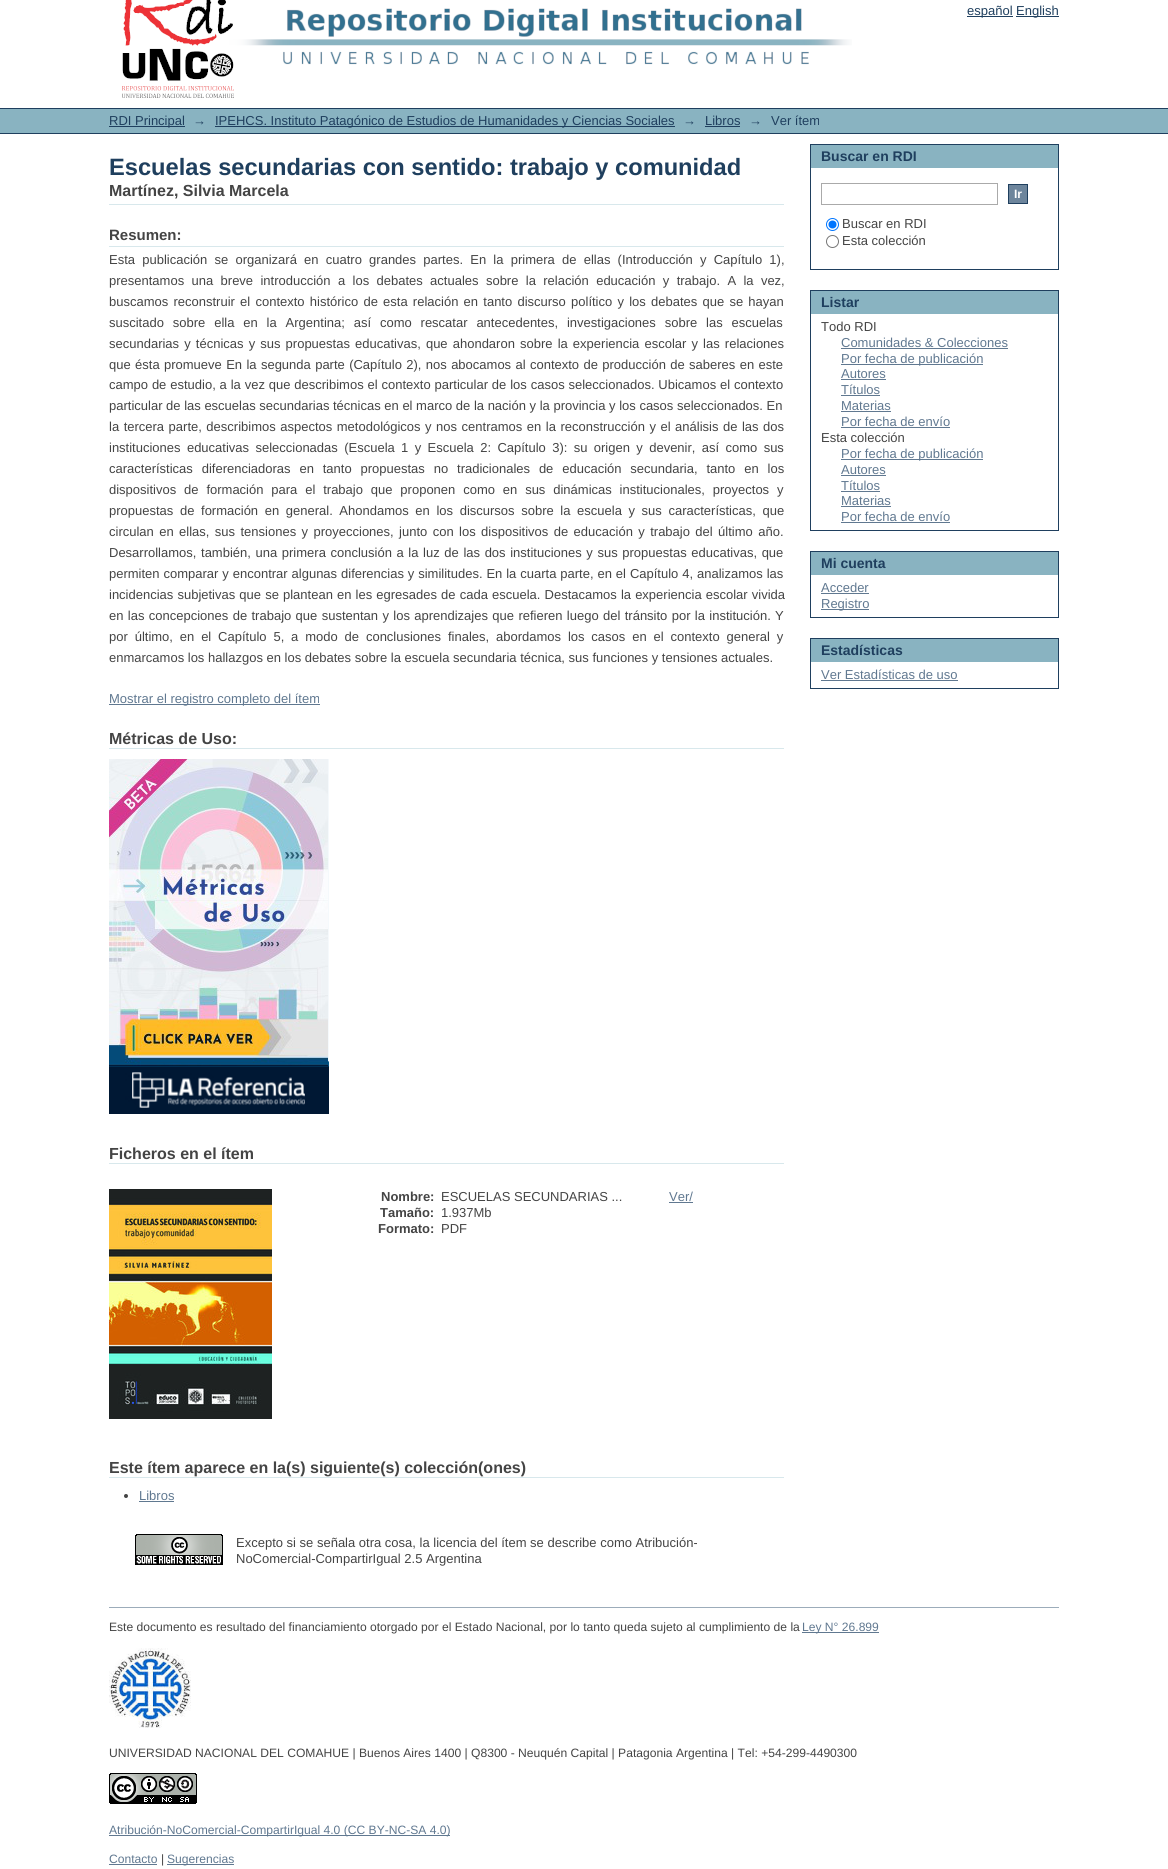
import math
import cairo

surface = cairo.ImageSurface(cairo.FORMAT_RGB24, 1168, 1869)
ctx = cairo.Context(surface)
options = cairo.FontOptions()
options.set_hint_metrics(cairo.HINT_METRICS_OFF)
options.set_hint_style(cairo.HINT_STYLE_NONE)
ctx.set_font_options(options)
ctx.set_miter_limit(4)


def spaced_text(x, y, s, letter, word):
    ctx.move_to(x, y)
    for ch in s:
        ctx.show_text(ch)
        ctx.rel_move_to(letter + word * (ch == ' '), 0)


def picture(path, x, y, w, h):
    ctx.save()
    ctx.set_source_surface(cairo.ImageSurface.create_from_png(path), x, y)
    ctx.rectangle(x, y, w, h)
    ctx.fill()
    ctx.restore()


ctx.set_source_rgb(1, 1, 1)
ctx.paint()
picture("img1.png", 122, 0, 730, 98)
ctx.set_source_rgb(0.122, 0.247, 0.369)
ctx.rectangle(967, 16, 46, 1)
ctx.fill()
ctx.select_font_face("Liberation Sans")
ctx.set_font_size(13)
ctx.move_to(967, 15)
ctx.show_text("español")
ctx.rectangle(1016, 16, 43, 1)
ctx.fill()
ctx.move_to(1016, 15)
ctx.show_text("English")
ctx.set_source_rgb(0.537, 0.702, 0.757)
ctx.rectangle(0, 109, 1168, 24)
ctx.fill()
ctx.set_source_rgb(0.122, 0.247, 0.369)
ctx.rectangle(0, 108, 1168, 1)
ctx.fill()
ctx.rectangle(0, 133, 1168, 1)
ctx.fill()
ctx.rectangle(109, 126, 76, 1)
ctx.fill()
ctx.move_to(109, 125)
ctx.show_text("RDI Principal")
ctx.move_to(193, 125)
ctx.show_text("→")
ctx.rectangle(215, 126, 460, 1)
ctx.fill()
ctx.move_to(215, 125)
ctx.show_text("IPEHCS. Instituto Patagónico de Estudios de Humanidades y Ciencias Sociales")
ctx.move_to(683, 125)
ctx.show_text("→")
ctx.move_to(705, 125)
ctx.show_text("Libros")
ctx.rectangle(705, 126, 35, 1)
ctx.fill()
ctx.move_to(749, 125)
ctx.show_text("→")
ctx.move_to(771, 125)
ctx.show_text("Ver ítem")
ctx.select_font_face("Liberation Sans", cairo.FONT_SLANT_NORMAL, cairo.FONT_WEIGHT_BOLD)
ctx.set_font_size(23.65)
ctx.move_to(109, 175)
ctx.show_text("Escuelas secundarias con sentido: trabajo y comunidad")
ctx.set_source_rgb(0.847, 0.91, 0.922)
ctx.rectangle(109, 204, 675, 1)
ctx.fill()
ctx.set_font_size(16)
ctx.set_source_rgb(0.267, 0.267, 0.267)
ctx.move_to(109, 196)
ctx.show_text("Martínez, Silvia Marcela")
ctx.set_source_rgb(0.847, 0.91, 0.922)
ctx.rectangle(109, 246, 675, 1)
ctx.fill()
ctx.set_font_size(15)
ctx.set_source_rgb(0.267, 0.267, 0.267)
ctx.move_to(109, 240)
ctx.show_text("Resumen:")
ctx.select_font_face("Liberation Sans")
ctx.set_font_size(13)
spaced_text(109, 264, "Esta publicación se organizará en cuatro grandes partes. En la primera de ellas (Introducción y Capítulo 1),", 0, 3.6)
spaced_text(109, 285, "presentamos una breve introducción a los debates actuales sobre la relación educación y trabajo. A la vez,", 0, 3.75)
spaced_text(109, 306, "buscamos reconstruir el contexto histórico de esta relación en tanto discurso político y los debates que se hayan", 0, 1.6)
spaced_text(109, 327, "suscitado sobre ella en la Argentina; así como rescatar antecedentes, investigaciones sobre las escuelas", 0, 5.25)
spaced_text(109, 348, "secundarias y técnicas y sus propuestas educativas, que ahondaron sobre la experiencia escolar y las relaciones", 0, 1.5)
spaced_text(109, 369, "que ésta promueve En la segunda parte (Capítulo 2), nos abocamos al contexto de producción de saberes en este", 0, 0.75)
spaced_text(109, 389, "campo de estudio, a la vez que describimos el contexto particular de los casos seleccionados. Ubicamos el contexto", 0, 0.25)
ctx.move_to(109, 410)
ctx.show_text("particular de las escuelas secundarias técnicas en el marco de la nación y la provincia y los casos seleccionados. En")
spaced_text(109, 431, "la tercera parte, describimos aspectos metodológicos y nos centramos en la reconstrucción y el análisis de las dos", 0, 0.9)
spaced_text(109, 452, "instituciones educativas seleccionadas (Escuela 1 y Escuela 2: Capítulo 3): su origen y devenir, así como sus", 0, 2.75)
spaced_text(109, 473, "características diferenciadoras en tanto propuestas no tradicionales de educación secundaria, tanto en los", 0, 5.25)
spaced_text(109, 494, "dispositivos de formación para el trabajo que proponen como en sus dinámicas institucionales, proyectos y", 0, 4.25)
spaced_text(109, 515, "propuestas de formación en general. Ahondamos en los discursos sobre la escuela y sus características, que", 0, 3)
spaced_text(109, 536, "circulan en ellas, sus tensiones y proyecciones, junto con los dispositivos de educación y trabajo del último año.", 0, 1.8)
spaced_text(109, 557, "Desarrollamos, también, una primera conclusión a la luz de las dos instituciones y sus propuestas educativas, que", 0, 1)
spaced_text(109, 578, "permiten comparar y encontrar algunas diferencias y similitudes. En la cuarta parte, en el Capítulo 4, analizamos las", 0, 0.3)
spaced_text(109, 599, "incidencias subjetivas que se plantean en les egresades de cada escuela. Destacamos la experiencia escolar vivida", 0, 0.5)
spaced_text(109, 620, "en las concepciones de trabajo que sustentan y los aprendizajes que refieren luego del tránsito por la institución. Y", 0, 0.75)
spaced_text(109, 641, "por último, en el Capítulo 5, a modo de conclusiones finales, abordamos los casos en el contexto general y", 0, 3.25)
ctx.move_to(109, 662)
ctx.show_text("enmarcamos los hallazgos en los debates sobre la escuela secundaria técnica, sus funciones y tensiones actuales.")
ctx.set_source_rgb(0.376, 0.471, 0.565)
ctx.rectangle(109, 704, 211, 1)
ctx.fill()
ctx.move_to(109, 703)
ctx.show_text("Mostrar el registro completo del ítem")
ctx.set_source_rgb(0.847, 0.91, 0.922)
ctx.rectangle(109, 748, 675, 1)
ctx.fill()
ctx.select_font_face("Liberation Sans", cairo.FONT_SLANT_NORMAL, cairo.FONT_WEIGHT_BOLD)
ctx.set_font_size(16)
ctx.set_source_rgb(0.267, 0.267, 0.267)
ctx.move_to(109, 744)
ctx.show_text("Métricas de Uso:")
picture("img2.png", 109, 759, 220, 355)
picture("img3.png", 109, 759, 219, 307)
ctx.set_source_rgb(0.847, 0.91, 0.922)
ctx.rectangle(109, 1163, 675, 1)
ctx.fill()
ctx.set_source_rgb(0.267, 0.267, 0.267)
ctx.move_to(109, 1159)
ctx.show_text("Ficheros en el ítem")
picture("img4.png", 109, 1189, 163, 230)
ctx.set_font_size(13)
ctx.move_to(381, 1201)
ctx.show_text("Nombre:")
ctx.select_font_face("Liberation Sans")
ctx.move_to(441, 1201)
ctx.show_text("ESCUELAS SECUNDARIAS ...")
ctx.select_font_face("Liberation Sans", cairo.FONT_SLANT_NORMAL, cairo.FONT_WEIGHT_BOLD)
ctx.move_to(380, 1217)
ctx.show_text("Tamaño:")
ctx.select_font_face("Liberation Sans")
ctx.move_to(441, 1217)
ctx.show_text("1.937Mb")
ctx.select_font_face("Liberation Sans", cairo.FONT_SLANT_NORMAL, cairo.FONT_WEIGHT_BOLD)
ctx.move_to(378, 1233)
ctx.show_text("Formato:")
ctx.select_font_face("Liberation Sans")
ctx.move_to(441, 1233)
ctx.show_text("PDF")
ctx.set_source_rgb(0.376, 0.471, 0.565)
ctx.move_to(669, 1201)
ctx.show_text("Ver/")
ctx.rectangle(669, 1202, 24, 1)
ctx.fill()
ctx.set_source_rgb(0.847, 0.91, 0.922)
ctx.rectangle(109, 1477, 675, 1)
ctx.fill()
ctx.select_font_face("Liberation Sans", cairo.FONT_SLANT_NORMAL, cairo.FONT_WEIGHT_BOLD)
ctx.set_font_size(16)
ctx.set_source_rgb(0.267, 0.267, 0.267)
ctx.move_to(109, 1473)
ctx.show_text("Este ítem aparece en la(s) siguiente(s) colección(ones)")
ctx.new_path()
ctx.arc(126, 1496, 2, 0, 2 * math.pi)
ctx.fill()
ctx.select_font_face("Liberation Sans")
ctx.set_font_size(13)
ctx.set_source_rgb(0.376, 0.471, 0.565)
ctx.move_to(139, 1500)
ctx.show_text("Libros")
ctx.rectangle(139, 1501, 35, 1)
ctx.fill()
picture("img5.png", 135, 1534, 88, 31)
ctx.set_source_rgb(0.267, 0.267, 0.267)
ctx.move_to(236, 1547)
ctx.show_text("Excepto si se señala otra cosa, la licencia del ítem se describe como Atribución-")
ctx.move_to(236, 1563)
ctx.show_text("NoComercial-CompartirIgual 2.5 Argentina")
ctx.set_source_rgb(0.537, 0.702, 0.757)
ctx.rectangle(811, 145, 247, 23)
ctx.fill()
ctx.set_source_rgb(0.122, 0.247, 0.369)
ctx.rectangle(810, 144, 249, 1)
ctx.fill()
ctx.rectangle(1058, 144, 1, 126)
ctx.fill()
ctx.rectangle(810, 144, 1, 24)
ctx.fill()
ctx.select_font_face("Liberation Sans", cairo.FONT_SLANT_NORMAL, cairo.FONT_WEIGHT_BOLD)
ctx.set_font_size(14)
ctx.move_to(821, 161)
ctx.show_text("Buscar en RDI")
ctx.rectangle(810, 269, 249, 1)
ctx.fill()
ctx.rectangle(810, 168, 1, 102)
ctx.fill()
ctx.rectangle(821.5, 183.5, 176, 21)
ctx.set_source_rgb(0.667, 0.667, 0.667)
ctx.set_line_width(1)
ctx.stroke()
ctx.set_source_rgb(0.427, 0.522, 0.612)
ctx.rectangle(1008.5, 184.5, 19, 19)
ctx.fill_preserve()
ctx.set_source_rgb(0.122, 0.247, 0.369)
ctx.stroke()
ctx.set_font_size(12.1)
ctx.set_source_rgb(1, 1, 1)
ctx.move_to(1014, 198)
ctx.show_text("Ir")
ctx.new_path()
ctx.arc(832.5, 224.5, 6, 0, 2 * math.pi)
ctx.set_source_rgb(0, 0.459, 1)
ctx.stroke()
ctx.arc(832.5, 224.5, 4, 0, 2 * math.pi)
ctx.fill()
ctx.select_font_face("Liberation Sans")
ctx.set_font_size(13)
ctx.set_source_rgb(0.267, 0.267, 0.267)
ctx.move_to(842, 228)
ctx.show_text("Buscar en RDI")
ctx.new_path()
ctx.arc(832.5, 241.5, 6, 0, 2 * math.pi)
ctx.set_source_rgb(0.463, 0.463, 0.463)
ctx.stroke()
ctx.set_source_rgb(0.267, 0.267, 0.267)
ctx.move_to(842, 245)
ctx.show_text("Esta colección")
ctx.set_source_rgb(0.537, 0.702, 0.757)
ctx.rectangle(811, 291, 247, 23)
ctx.fill()
ctx.set_source_rgb(0.122, 0.247, 0.369)
ctx.rectangle(810, 290, 249, 1)
ctx.fill()
ctx.rectangle(1058, 290, 1, 241)
ctx.fill()
ctx.rectangle(810, 290, 1, 24)
ctx.fill()
ctx.select_font_face("Liberation Sans", cairo.FONT_SLANT_NORMAL, cairo.FONT_WEIGHT_BOLD)
ctx.set_font_size(14)
ctx.move_to(821, 307)
ctx.show_text("Listar")
ctx.rectangle(810, 530, 249, 1)
ctx.fill()
ctx.rectangle(810, 314, 1, 217)
ctx.fill()
ctx.select_font_face("Liberation Sans")
ctx.set_font_size(13)
ctx.set_source_rgb(0.267, 0.267, 0.267)
ctx.move_to(821, 331)
ctx.show_text("Todo RDI")
ctx.set_source_rgb(0.376, 0.471, 0.565)
ctx.move_to(841, 347)
ctx.show_text("Comunidades & Colecciones")
ctx.rectangle(841, 348, 167, 1)
ctx.fill()
ctx.rectangle(841, 364, 142, 1)
ctx.fill()
ctx.move_to(841, 363)
ctx.show_text("Por fecha de publicación")
ctx.move_to(841, 378)
ctx.show_text("Autores")
ctx.rectangle(841, 379, 45, 1)
ctx.fill()
ctx.move_to(841, 394)
ctx.show_text("Títulos")
ctx.rectangle(841, 395, 39, 1)
ctx.fill()
ctx.move_to(841, 410)
ctx.show_text("Materias")
ctx.rectangle(841, 411, 50, 1)
ctx.fill()
ctx.move_to(841, 426)
ctx.show_text("Por fecha de envío")
ctx.rectangle(841, 427, 109, 1)
ctx.fill()
ctx.set_source_rgb(0.267, 0.267, 0.267)
ctx.move_to(821, 442)
ctx.show_text("Esta colección")
ctx.set_source_rgb(0.376, 0.471, 0.565)
ctx.rectangle(841, 459, 142, 1)
ctx.fill()
ctx.move_to(841, 458)
ctx.show_text("Por fecha de publicación")
ctx.move_to(841, 474)
ctx.show_text("Autores")
ctx.rectangle(841, 475, 45, 1)
ctx.fill()
ctx.move_to(841, 490)
ctx.show_text("Títulos")
ctx.rectangle(841, 491, 39, 1)
ctx.fill()
ctx.move_to(841, 505)
ctx.show_text("Materias")
ctx.rectangle(841, 506, 50, 1)
ctx.fill()
ctx.move_to(841, 521)
ctx.show_text("Por fecha de envío")
ctx.rectangle(841, 522, 109, 1)
ctx.fill()
ctx.set_source_rgb(0.537, 0.702, 0.757)
ctx.rectangle(811, 552, 247, 23)
ctx.fill()
ctx.set_source_rgb(0.122, 0.247, 0.369)
ctx.rectangle(810, 551, 249, 1)
ctx.fill()
ctx.rectangle(1058, 551, 1, 67)
ctx.fill()
ctx.rectangle(810, 551, 1, 24)
ctx.fill()
ctx.select_font_face("Liberation Sans", cairo.FONT_SLANT_NORMAL, cairo.FONT_WEIGHT_BOLD)
ctx.set_font_size(14)
ctx.move_to(821, 568)
ctx.show_text("Mi cuenta")
ctx.rectangle(810, 617, 249, 1)
ctx.fill()
ctx.rectangle(810, 575, 1, 43)
ctx.fill()
ctx.select_font_face("Liberation Sans")
ctx.set_font_size(13)
ctx.set_source_rgb(0.376, 0.471, 0.565)
ctx.move_to(821, 592)
ctx.show_text("Acceder")
ctx.rectangle(821, 593, 48, 1)
ctx.fill()
ctx.rectangle(821, 609, 48, 1)
ctx.fill()
ctx.move_to(821, 608)
ctx.show_text("Registro")
ctx.set_source_rgb(0.537, 0.702, 0.757)
ctx.rectangle(811, 639, 247, 23)
ctx.fill()
ctx.set_source_rgb(0.122, 0.247, 0.369)
ctx.rectangle(810, 638, 249, 1)
ctx.fill()
ctx.rectangle(1058, 638, 1, 51)
ctx.fill()
ctx.rectangle(810, 638, 1, 24)
ctx.fill()
ctx.select_font_face("Liberation Sans", cairo.FONT_SLANT_NORMAL, cairo.FONT_WEIGHT_BOLD)
ctx.set_font_size(14)
ctx.move_to(821, 655)
ctx.show_text("Estadísticas")
ctx.rectangle(810, 688, 249, 1)
ctx.fill()
ctx.rectangle(810, 662, 1, 27)
ctx.fill()
ctx.select_font_face("Liberation Sans")
ctx.set_font_size(13)
ctx.set_source_rgb(0.376, 0.471, 0.565)
ctx.move_to(821, 679)
ctx.show_text("Ver Estadísticas de uso")
ctx.rectangle(821, 680, 137, 1)
ctx.fill()
ctx.set_source_rgb(0.612, 0.675, 0.729)
ctx.rectangle(109, 1607, 950, 1)
ctx.fill()
ctx.set_font_size(12.1)
ctx.set_source_rgb(0.267, 0.267, 0.267)
ctx.move_to(109, 1631)
ctx.show_text("Este documento es resultado del financiamiento otorgado por el Estado Nacional, por lo tanto queda sujeto al cumplimiento de la")
ctx.set_source_rgb(0.376, 0.471, 0.565)
ctx.rectangle(802, 1632, 77, 1)
ctx.fill()
ctx.move_to(802, 1631)
ctx.show_text("Ley N° 26.899")
picture("img6.png", 109, 1648, 82, 80)
ctx.set_source_rgb(0.267, 0.267, 0.267)
ctx.move_to(109, 1757)
ctx.show_text("UNIVERSIDAD NACIONAL DEL COMAHUE | Buenos Aires 1400 | Q8300 - Neuquén Capital | Patagonia Argentina | Tel: +54-299-4490300")
picture("img7.png", 109, 1773, 88, 31)
ctx.set_source_rgb(0.376, 0.471, 0.565)
ctx.rectangle(109, 1835, 341, 1)
ctx.fill()
ctx.move_to(109, 1834)
ctx.show_text("Atribución-NoComercial-CompartirIgual 4.0 (CC BY-NC-SA 4.0)")
ctx.move_to(109, 1863)
ctx.show_text("Contacto")
ctx.rectangle(109, 1864, 48, 1)
ctx.fill()
ctx.set_source_rgb(0.267, 0.267, 0.267)
ctx.move_to(161, 1863)
ctx.show_text("|")
ctx.set_source_rgb(0.376, 0.471, 0.565)
ctx.rectangle(167, 1864, 67, 1)
ctx.fill()
ctx.move_to(167, 1863)
ctx.show_text("Sugerencias")
surface.write_to_png("page.png")
